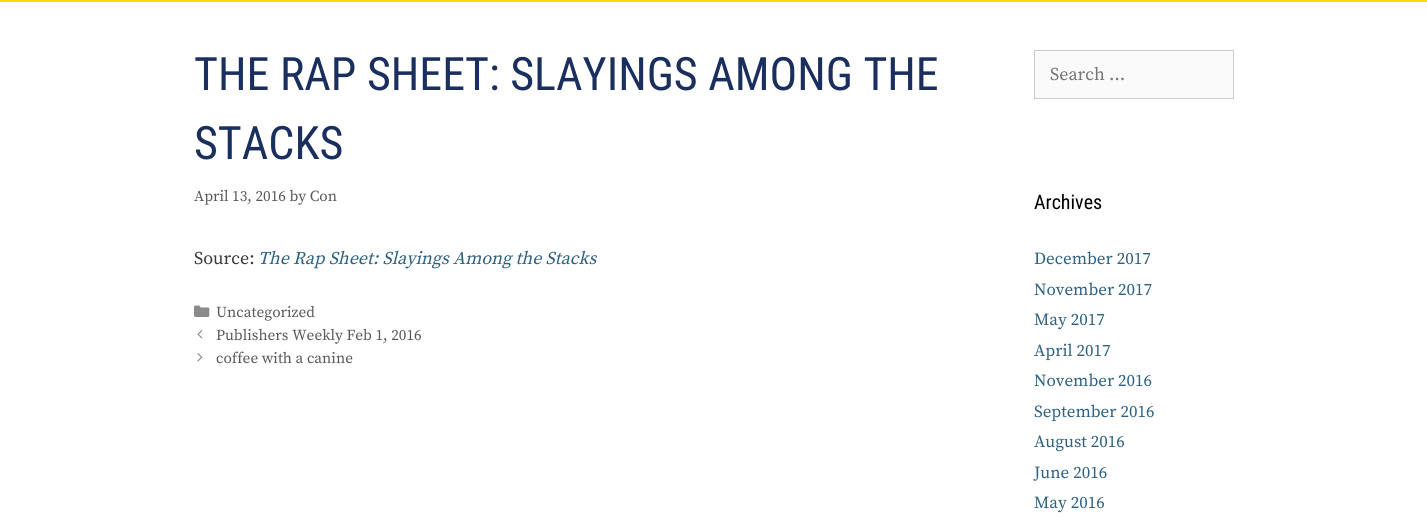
import math
import cairo

surface = cairo.ImageSurface(cairo.FORMAT_RGB24, 1427, 520)
ctx = cairo.Context(surface)
options = cairo.FontOptions()
options.set_hint_metrics(cairo.HINT_METRICS_OFF)
options.set_hint_style(cairo.HINT_STYLE_NONE)
ctx.set_font_options(options)
ctx.set_miter_limit(4)


def picture(path, x, y, w, h):
    ctx.save()
    ctx.set_source_surface(cairo.ImageSurface.create_from_png(path), x, y)
    ctx.rectangle(x, y, w, h)
    ctx.fill()
    ctx.restore()


ctx.set_source_rgb(1, 1, 1)
ctx.paint()
ctx.set_source_rgb(1, 0.851, 0)
ctx.rectangle(0, 0, 1427, 2)
ctx.fill()
ctx.select_font_face("Roboto Condensed")
ctx.set_font_size(46)
ctx.set_source_rgb(0.102, 0.184, 0.369)
ctx.move_to(194, 90)
ctx.show_text("THE RAP SHEET: SLAYINGS AMONG THE")
ctx.move_to(194, 159)
ctx.show_text("STACKS")
ctx.select_font_face("Source Serif Pro")
ctx.set_font_size(15.25)
ctx.set_source_rgb(0.349, 0.349, 0.349)
ctx.move_to(194, 201)
ctx.show_text("April 13, 2016 by Con")
ctx.set_font_size(18)
ctx.set_source_rgb(0.227, 0.227, 0.227)
ctx.move_to(194, 264)
ctx.show_text("Source:")
ctx.select_font_face("Source Serif Pro", cairo.FONT_SLANT_ITALIC)
ctx.set_source_rgb(0.184, 0.38, 0.51)
ctx.move_to(258, 264)
ctx.show_text("The Rap Sheet: Slayings Among the Stacks")
picture("img1.png", 194, 305, 16, 12)
ctx.select_font_face("Source Serif Pro")
ctx.set_font_size(15.25)
ctx.set_source_rgb(0.349, 0.349, 0.349)
ctx.move_to(216, 317)
ctx.show_text("Uncategorized")
picture("img2.png", 197, 330, 6, 9)
ctx.move_to(216, 340)
ctx.show_text("Publishers Weekly Feb 1, 2016")
picture("img3.png", 197, 353, 6, 9)
ctx.move_to(216, 363)
ctx.show_text("coffee with a canine")
ctx.set_source_rgb(0.98, 0.98, 0.98)
ctx.rectangle(1034.5, 50.5, 199, 48)
ctx.fill_preserve()
ctx.set_source_rgb(0.8, 0.8, 0.8)
ctx.set_line_width(1)
ctx.stroke()
ctx.set_font_size(18)
ctx.set_source_rgb(0.459, 0.459, 0.459)
ctx.move_to(1050, 80)
ctx.show_text("Search …")
ctx.select_font_face("Roboto Condensed")
ctx.set_font_size(20)
ctx.set_source_rgb(0, 0, 0)
ctx.move_to(1034, 209)
ctx.show_text("Archives")
ctx.select_font_face("Source Serif Pro")
ctx.set_font_size(17)
ctx.set_source_rgb(0.184, 0.38, 0.51)
ctx.move_to(1034, 264)
ctx.show_text("December 2017")
ctx.move_to(1034, 295)
ctx.show_text("November 2017")
ctx.move_to(1034, 325)
ctx.show_text("May 2017")
ctx.move_to(1034, 356)
ctx.show_text("April 2017")
ctx.move_to(1034, 386)
ctx.show_text("November 2016")
ctx.move_to(1034, 417)
ctx.show_text("September 2016")
ctx.move_to(1034, 447)
ctx.show_text("August 2016")
ctx.move_to(1034, 478)
ctx.show_text("June 2016")
ctx.move_to(1034, 508)
ctx.show_text("May 2016")
surface.write_to_png("page.png")
